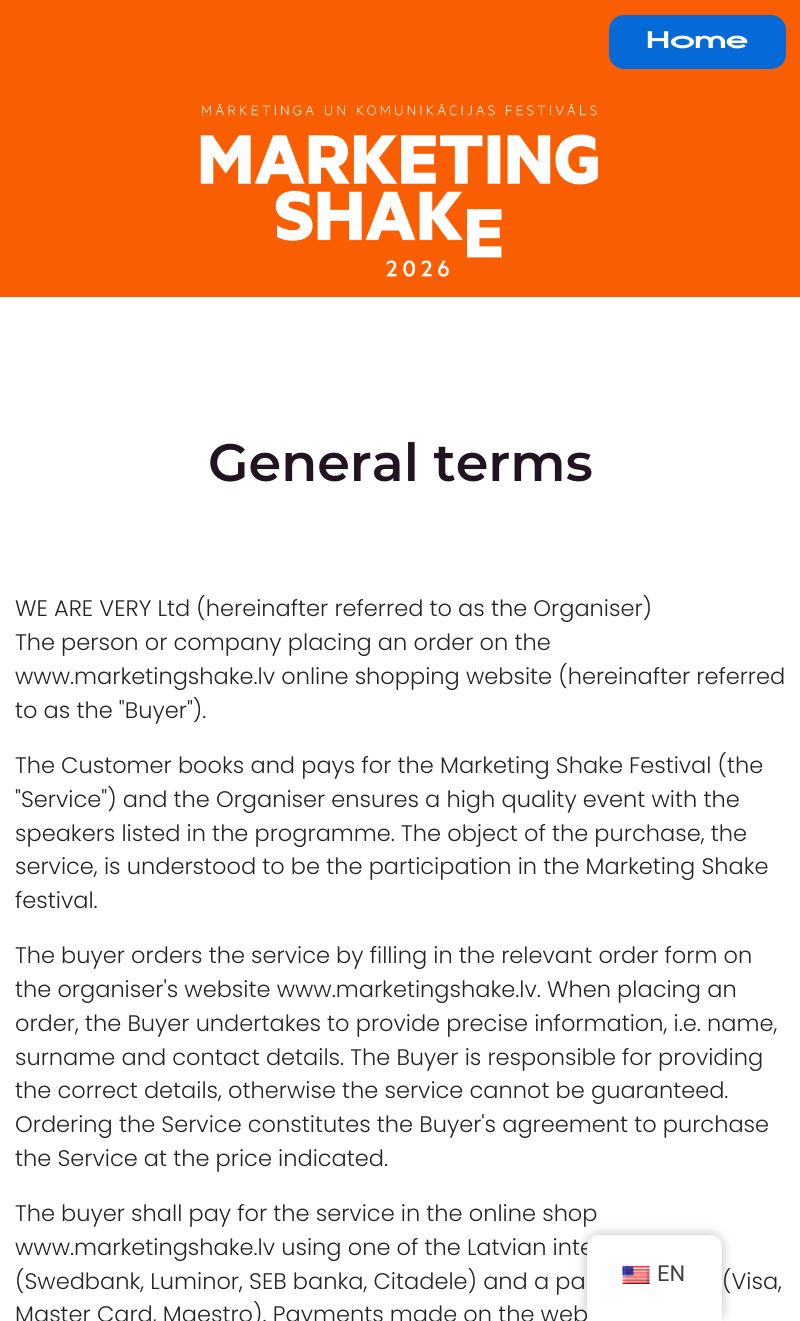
import math
import cairo

surface = cairo.ImageSurface(cairo.FORMAT_RGB24, 800, 1321)
ctx = cairo.Context(surface)
options = cairo.FontOptions()
options.set_hint_metrics(cairo.HINT_METRICS_OFF)
options.set_hint_style(cairo.HINT_STYLE_NONE)
ctx.set_font_options(options)
ctx.set_miter_limit(4)


def round_rect(x, y, w, h, r):
    ctx.new_sub_path()
    for i, (u, v) in enumerate([(x + w - r, y + h - r), (x + r, y + h - r), (x + r, y + r), (x + w - r, y + r)]):
        ctx.arc(u, v, r, i * math.pi / 2, (i + 1) * math.pi / 2)
    ctx.close_path()


def shadow(x, y, w, h, r, blur, alpha):
    ctx.push_group_with_content(cairo.CONTENT_ALPHA)
    ctx.set_operator(cairo.OPERATOR_SOURCE)
    for i in range(15, -16, -2):
        e = blur * i / 6
        if min(w, h) + 2 * e > 0:
            ctx.set_source_rgba(0, 0, 0, alpha * math.erfc((i - 1) / 8.5) / 2)
            round_rect(x - e, y - e, w + 2 * e, h + 2 * e, max(0, min(r + e + blur * .6, min(w, h) / 2 + e)))
            ctx.fill()
    ctx.mask(ctx.pop_group())


def picture(path, x, y, w, h):
    ctx.save()
    ctx.set_source_surface(cairo.ImageSurface.create_from_png(path), x, y)
    ctx.rectangle(x, y, w, h)
    ctx.fill()
    ctx.restore()


ctx.set_source_rgb(1, 1, 1)
ctx.paint()
ctx.set_source_rgb(0.976, 0.373, 0.008)
ctx.rectangle(0, 0, 800, 297)
ctx.fill()
ctx.set_source_rgb(0.02, 0.416, 0.847)
round_rect(609, 15, 177, 54, 15)
ctx.fill()
ctx.select_font_face("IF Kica", cairo.FONT_SLANT_NORMAL, cairo.FONT_WEIGHT_BOLD)
ctx.set_font_size(24)
ctx.set_source_rgb(1, 1, 1)
ctx.move_to(646, 48)
ctx.show_text("Home")
picture("img1.png", 200, 104, 398, 173)
ctx.select_font_face("Montserrat SemiBold")
ctx.set_font_size(52.5)
ctx.set_source_rgb(0.129, 0.078, 0.125)
ctx.move_to(208, 481)
ctx.show_text("General terms")
ctx.select_font_face("Poppins Light")
ctx.set_font_size(22.5)
ctx.set_source_rgb(0.141, 0.141, 0.141)
ctx.move_to(15, 616)
ctx.show_text("WE ARE VERY Ltd (hereinafter referred to as the Organiser)")
ctx.move_to(15, 650)
ctx.show_text("The person or company placing an order on the")
ctx.move_to(15, 684)
ctx.show_text("www.marketingshake.lv online shopping website (hereinafter referred")
ctx.move_to(15, 718)
ctx.show_text("to as the \"Buyer\").")
ctx.move_to(15, 773)
ctx.show_text("The Customer books and pays for the Marketing Shake Festival (the")
ctx.move_to(15, 807)
ctx.show_text("\"Service\") and the Organiser ensures a high quality event with the")
ctx.move_to(15, 841)
ctx.show_text("speakers listed in the programme. The object of the purchase, the")
ctx.move_to(15, 874)
ctx.show_text("service, is understood to be the participation in the Marketing Shake")
ctx.move_to(15, 908)
ctx.show_text("festival.")
ctx.move_to(15, 963)
ctx.show_text("The buyer orders the service by filling in the relevant order form on")
ctx.move_to(15, 997)
ctx.show_text("the organiser's website www.marketingshake.lv. When placing an")
ctx.move_to(15, 1031)
ctx.show_text("order, the Buyer undertakes to provide precise information, i.e. name,")
ctx.move_to(15, 1065)
ctx.show_text("surname and contact details. The Buyer is responsible for providing")
ctx.move_to(15, 1098)
ctx.show_text("the correct details, otherwise the service cannot be guaranteed.")
ctx.move_to(15, 1132)
ctx.show_text("Ordering the Service constitutes the Buyer's agreement to purchase")
ctx.move_to(15, 1166)
ctx.show_text("the Service at the price indicated.")
ctx.move_to(15, 1221)
ctx.show_text("The buyer shall pay for the service in the online shop")
ctx.move_to(15, 1255)
ctx.show_text("www.marketingshake.lv using one of the Latvian inte")
ctx.move_to(15, 1289)
ctx.show_text("(Swedbank, Luminor, SEB banka, Citadele) and a pa")
ctx.move_to(722, 1289)
ctx.show_text("(Visa,")
ctx.move_to(15, 1322)
ctx.show_text("Master Card, Maestro). Payments made on the web")
ctx.set_source_rgb(0, 0, 0)
shadow(587, 1235, 135, 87, 12, 6, 0.25)
ctx.set_source_rgb(1, 1, 1)
ctx.new_path()
ctx.move_to(599, 1235)
ctx.line_to(710, 1235)
ctx.curve_to(716.5, 1235, 722, 1240.5, 722, 1247)
ctx.line_to(722, 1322)
ctx.line_to(587, 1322)
ctx.line_to(587, 1247)
ctx.curve_to(587, 1240.5, 592.5, 1235, 599, 1235)
ctx.close_path()
ctx.fill()
picture("img2.png", 622, 1265, 28, 19)
ctx.select_font_face("Roboto")
ctx.set_font_size(22)
ctx.set_source_rgb(0.251, 0.251, 0.251)
ctx.move_to(657, 1281)
ctx.show_text("EN")
surface.write_to_png("page.png")
